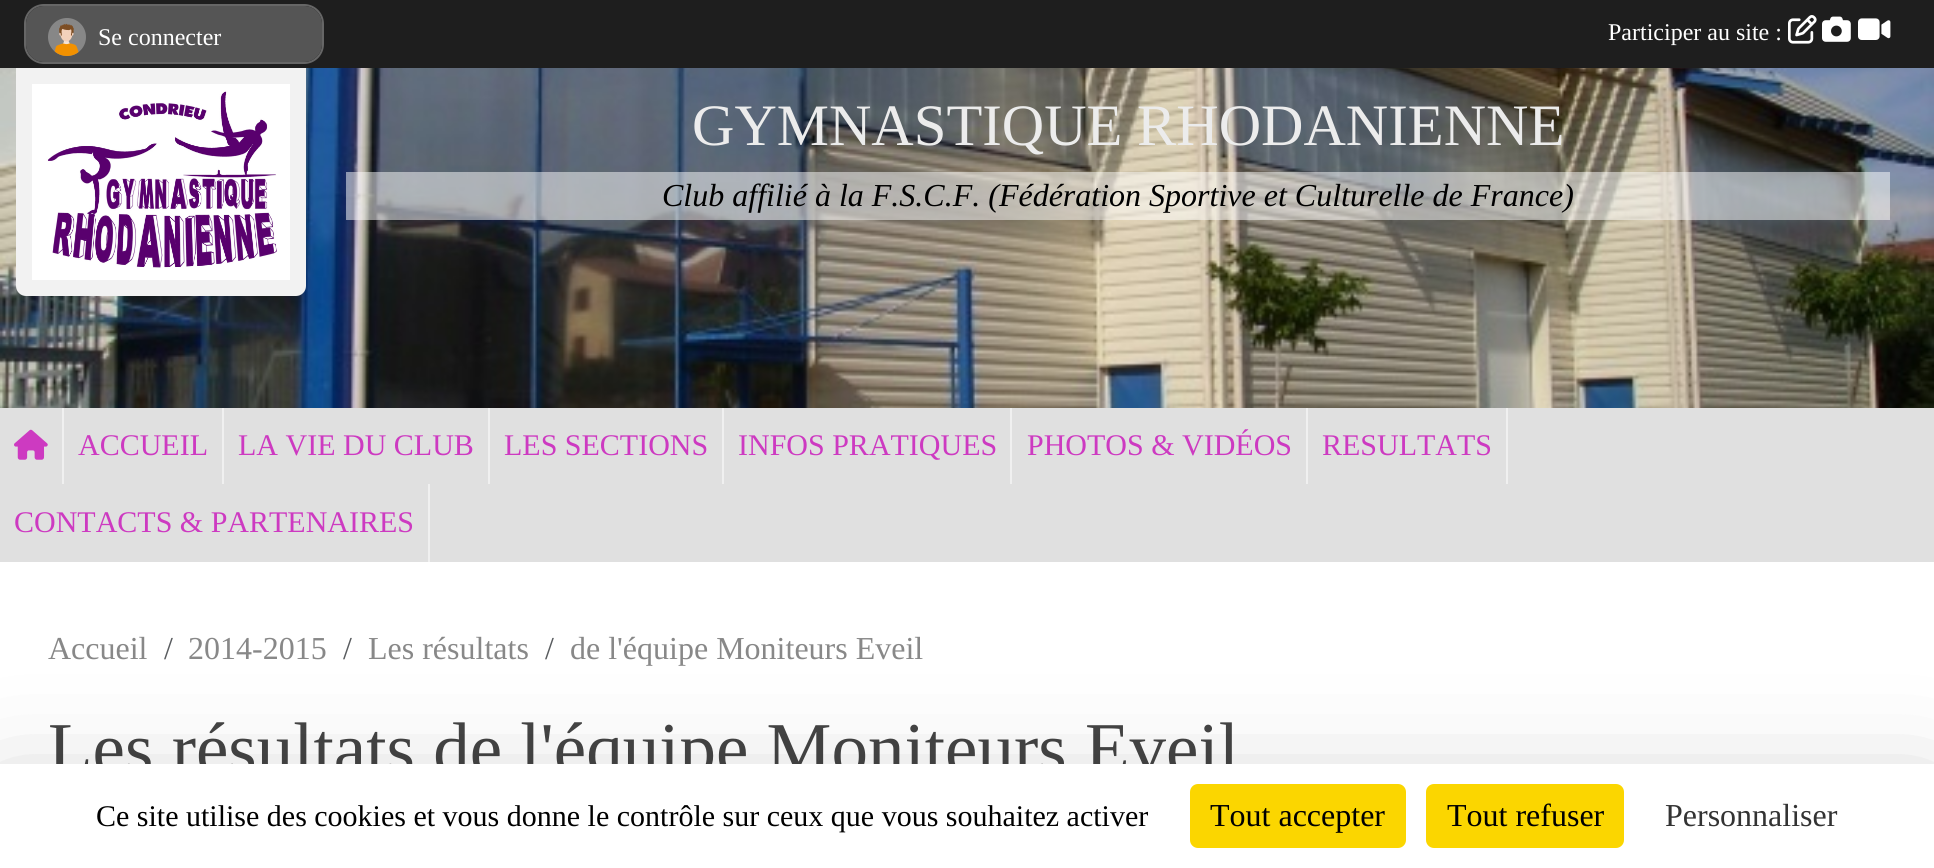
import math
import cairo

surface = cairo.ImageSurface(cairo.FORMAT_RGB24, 1934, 868)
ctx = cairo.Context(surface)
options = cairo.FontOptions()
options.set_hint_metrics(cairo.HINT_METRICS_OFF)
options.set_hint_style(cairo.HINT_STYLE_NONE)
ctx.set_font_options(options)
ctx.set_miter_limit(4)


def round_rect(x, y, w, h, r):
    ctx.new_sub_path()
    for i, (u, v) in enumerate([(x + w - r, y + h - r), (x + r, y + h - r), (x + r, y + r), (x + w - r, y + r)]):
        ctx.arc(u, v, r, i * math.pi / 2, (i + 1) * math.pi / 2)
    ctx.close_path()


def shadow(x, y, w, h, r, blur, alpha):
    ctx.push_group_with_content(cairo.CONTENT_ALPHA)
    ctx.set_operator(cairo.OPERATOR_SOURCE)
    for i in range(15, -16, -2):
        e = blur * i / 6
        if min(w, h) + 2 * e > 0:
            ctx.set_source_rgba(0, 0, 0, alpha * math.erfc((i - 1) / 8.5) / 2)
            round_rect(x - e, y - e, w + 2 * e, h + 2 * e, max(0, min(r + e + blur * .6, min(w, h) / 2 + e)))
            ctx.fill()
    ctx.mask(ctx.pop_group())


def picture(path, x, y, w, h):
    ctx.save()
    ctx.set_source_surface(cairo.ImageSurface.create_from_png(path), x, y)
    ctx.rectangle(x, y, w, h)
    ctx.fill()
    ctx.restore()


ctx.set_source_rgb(0.878, 0.878, 0.878)
ctx.paint()
ctx.set_source_rgb(0.118, 0.118, 0.118)
ctx.rectangle(0, 0, 1934, 68)
ctx.fill()
round_rect(25, 5, 298, 58, 19)
ctx.set_source_rgb(0.4, 0.4, 0.4)
ctx.stroke()
ctx.set_source_rgb(0.333, 0.333, 0.333)
round_rect(26, 6, 296, 56, 18)
ctx.fill()
picture("img1.png", 48, 18, 38, 38)
ctx.select_font_face("Liberation Serif")
ctx.set_font_size(24)
ctx.set_source_rgb(1, 1, 1)
ctx.move_to(98, 45)
ctx.show_text("Se connecter")
ctx.move_to(1608, 40)
ctx.show_text("Participer au site :")
picture("img2.png", 1788, 15, 29, 29)
picture("img3.png", 1822, 16, 29, 26)
picture("img4.png", 1858, 18, 33, 22)
picture("img6.png", 0, 68, 1934, 340)
ctx.set_source_rgb(0.949, 0.949, 0.949)
ctx.new_path()
ctx.move_to(16, 68)
ctx.line_to(306, 68)
ctx.line_to(306, 286)
ctx.curve_to(306, 291.5, 301.5, 296, 296, 296)
ctx.line_to(26, 296)
ctx.curve_to(20.5, 296, 16, 291.5, 16, 286)
ctx.close_path()
ctx.fill()
picture("img5.png", 32, 84, 258, 196)
ctx.set_font_size(58.7)
ctx.set_source_rgb(0.922, 0.922, 0.922)
ctx.move_to(692, 145)
ctx.show_text("GYMNASTIQUE RHODANIENNE")
ctx.set_source_rgba(1, 1, 1, 0.5)
ctx.rectangle(346, 172, 1544, 48)
ctx.fill()
ctx.select_font_face("Liberation Serif", cairo.FONT_SLANT_ITALIC)
ctx.set_font_size(32)
ctx.set_source_rgb(0, 0, 0)
ctx.move_to(662, 206)
ctx.show_text("Club affilié à la F.S.C.F. (Fédération Sportive et Culturelle de France)")
ctx.set_source_rgb(0.941, 0.941, 0.941)
ctx.rectangle(62, 408, 2, 76)
ctx.fill()
picture("img7.png", 14, 429, 34, 31)
ctx.rectangle(222, 408, 2, 76)
ctx.fill()
ctx.select_font_face("Liberation Serif")
ctx.set_font_size(30)
ctx.set_source_rgb(0.804, 0.227, 0.757)
ctx.move_to(78, 455)
ctx.show_text("ACCUEIL")
ctx.set_source_rgb(0.941, 0.941, 0.941)
ctx.rectangle(488, 408, 2, 76)
ctx.fill()
ctx.set_source_rgb(0.804, 0.227, 0.757)
ctx.move_to(238, 455)
ctx.show_text("LA VIE DU CLUB")
ctx.set_source_rgb(0.941, 0.941, 0.941)
ctx.rectangle(722, 408, 2, 76)
ctx.fill()
ctx.set_source_rgb(0.804, 0.227, 0.757)
ctx.move_to(504, 455)
ctx.show_text("LES SECTIONS")
ctx.set_source_rgb(0.941, 0.941, 0.941)
ctx.rectangle(1010, 408, 2, 76)
ctx.fill()
ctx.set_source_rgb(0.804, 0.227, 0.757)
ctx.move_to(738, 455)
ctx.show_text("INFOS PRATIQUES")
ctx.set_source_rgb(0.941, 0.941, 0.941)
ctx.rectangle(1306, 408, 2, 76)
ctx.fill()
ctx.set_source_rgb(0.804, 0.227, 0.757)
ctx.move_to(1027, 455)
ctx.show_text("PHOTOS & VIDÉOS")
ctx.set_source_rgb(0.941, 0.941, 0.941)
ctx.rectangle(1506, 408, 2, 76)
ctx.fill()
ctx.set_source_rgb(0.804, 0.227, 0.757)
ctx.move_to(1322, 455)
ctx.show_text("RESULTATS")
ctx.set_source_rgb(0.941, 0.941, 0.941)
ctx.rectangle(428, 484, 2, 78)
ctx.fill()
ctx.set_source_rgb(0.804, 0.227, 0.757)
ctx.move_to(14, 532)
ctx.show_text("CONTACTS & PARTENAIRES")
ctx.set_source_rgb(1, 1, 1)
ctx.rectangle(0, 562, 1934, 202)
ctx.fill()
ctx.set_font_size(32)
ctx.set_source_rgb(0.533, 0.533, 0.533)
ctx.move_to(48, 659)
ctx.show_text("Accueil")
ctx.set_source_rgb(0.349, 0.361, 0.373)
ctx.move_to(164, 659)
ctx.show_text("/")
ctx.set_source_rgb(0.533, 0.533, 0.533)
ctx.move_to(188, 659)
ctx.show_text("2014-2015")
ctx.set_source_rgb(0.349, 0.361, 0.373)
ctx.move_to(343, 659)
ctx.show_text("/")
ctx.set_source_rgb(0.533, 0.533, 0.533)
ctx.move_to(368, 659)
ctx.show_text("Les résultats")
ctx.set_source_rgb(0.349, 0.361, 0.373)
ctx.move_to(545, 659)
ctx.show_text("/")
ctx.set_source_rgb(0.533, 0.533, 0.533)
ctx.move_to(570, 659)
ctx.show_text("de l'équipe Moniteurs Eveil")
ctx.set_font_size(73)
ctx.set_source_rgb(0.267, 0.267, 0.267)
ctx.move_to(48, 773)
ctx.show_text("Les résultats de l'équipe Moniteurs Eveil")
ctx.set_source_rgb(0, 0, 0)
shadow(0, 804, 1934, 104, 0, 60, 0.25)
ctx.set_source_rgb(1, 1, 1)
ctx.rectangle(0, 764, 1934, 104)
ctx.fill()
ctx.set_font_size(30)
ctx.set_source_rgb(0, 0, 0)
ctx.move_to(96, 826)
ctx.show_text("Ce site utilise des cookies et vous donne le contrôle sur ceux que vous souhaitez activer")
ctx.set_source_rgb(0.984, 0.839, 0)
round_rect(1190, 784, 216, 64, 8)
ctx.fill()
ctx.set_font_size(32)
ctx.set_source_rgb(0, 0, 0)
ctx.move_to(1210, 826)
ctx.show_text("Tout accepter")
ctx.set_source_rgb(0.984, 0.839, 0)
round_rect(1426, 784, 198, 64, 8)
ctx.fill()
ctx.set_source_rgb(0, 0, 0)
ctx.move_to(1447, 826)
ctx.show_text("Tout refuser")
ctx.set_source_rgb(0.2, 0.2, 0.2)
ctx.move_to(1665, 826)
ctx.show_text("Personnaliser")
surface.write_to_png("page.png")
